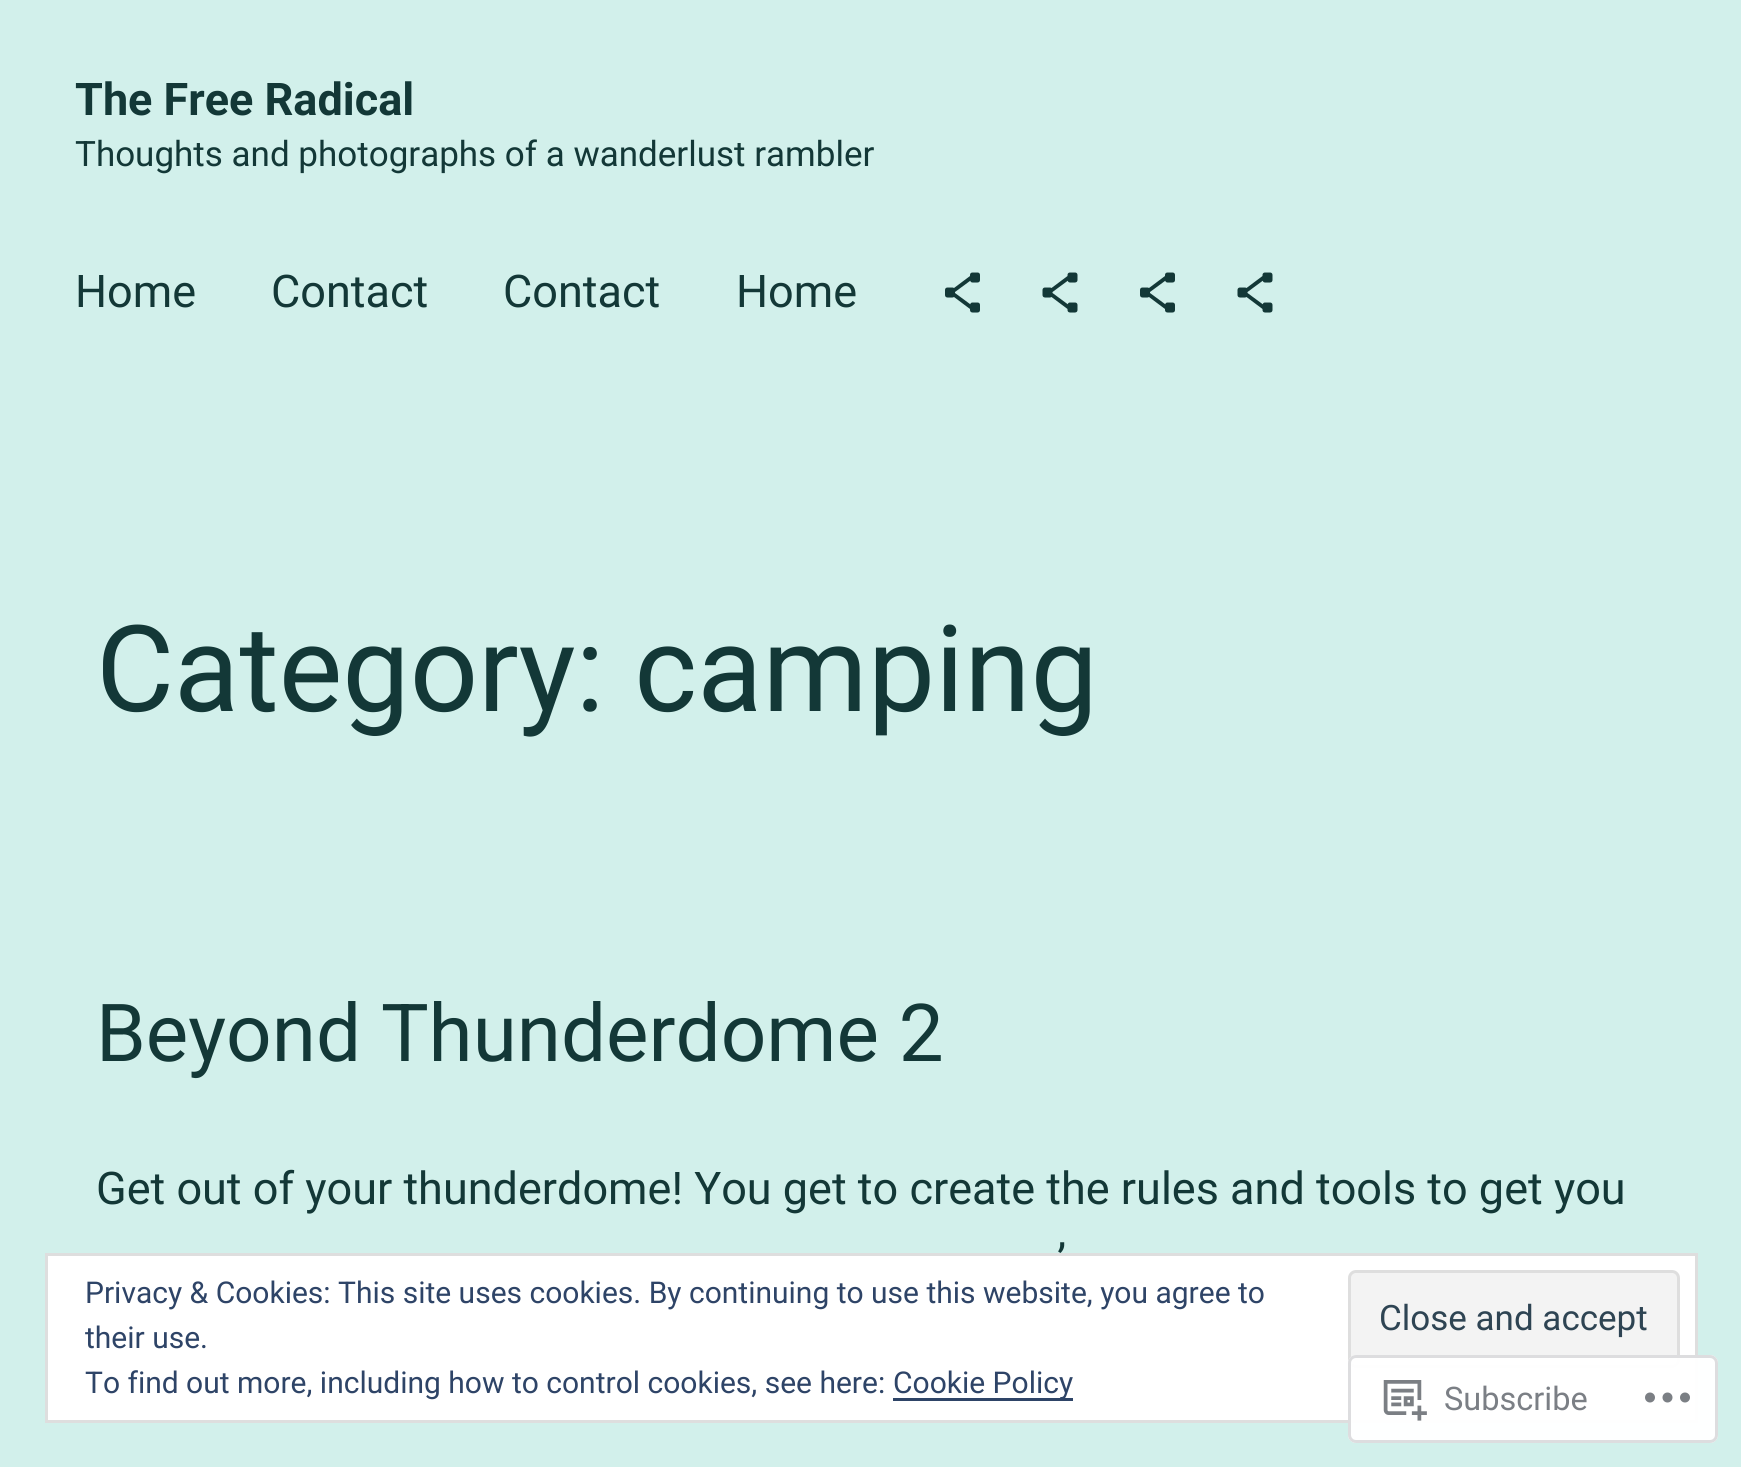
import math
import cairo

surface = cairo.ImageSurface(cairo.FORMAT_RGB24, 1741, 1467)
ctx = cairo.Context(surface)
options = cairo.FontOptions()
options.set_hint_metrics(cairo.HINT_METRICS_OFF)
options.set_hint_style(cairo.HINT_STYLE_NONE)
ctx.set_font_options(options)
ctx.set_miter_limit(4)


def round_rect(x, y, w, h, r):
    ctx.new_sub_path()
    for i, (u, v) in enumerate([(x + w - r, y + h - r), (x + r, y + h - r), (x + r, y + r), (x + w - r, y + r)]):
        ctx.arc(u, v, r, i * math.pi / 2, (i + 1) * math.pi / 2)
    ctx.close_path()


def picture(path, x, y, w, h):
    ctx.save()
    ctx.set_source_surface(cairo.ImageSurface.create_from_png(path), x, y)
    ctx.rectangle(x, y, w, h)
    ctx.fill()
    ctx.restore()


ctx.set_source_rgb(0.824, 0.941, 0.918)
ctx.paint()
ctx.select_font_face("Roboto", cairo.FONT_SLANT_NORMAL, cairo.FONT_WEIGHT_BOLD)
ctx.set_font_size(45)
ctx.set_source_rgb(0.075, 0.22, 0.216)
ctx.move_to(75, 115)
ctx.show_text("The Free Radical")
ctx.select_font_face("Roboto")
ctx.set_font_size(35)
ctx.move_to(75, 166)
ctx.show_text("Thoughts and photographs of a wanderlust rambler")
ctx.set_font_size(45)
ctx.move_to(75, 307)
ctx.show_text("Home")
ctx.move_to(271, 307)
ctx.show_text("Contact")
ctx.move_to(503, 307)
ctx.show_text("Contact")
ctx.move_to(736, 307)
ctx.show_text("Home")
picture("img1.png", 945, 272, 35, 41)
picture("img2.png", 1042, 272, 36, 41)
picture("img1.png", 1140, 272, 35, 41)
picture("img2.png", 1237, 272, 36, 41)
ctx.set_font_size(120)
ctx.move_to(96, 711)
ctx.show_text("Category: camping")
ctx.set_font_size(80)
ctx.move_to(96, 1061)
ctx.show_text("Beyond Thunderdome 2")
ctx.set_font_size(45)
ctx.move_to(96, 1204)
ctx.show_text("Get out of your thunderdome! You get to create the rules and tools to get you")
ctx.move_to(1057, 1276)
ctx.show_text("’")
ctx.set_source_rgb(1, 1, 1)
ctx.rectangle(46.5, 1254.5, 1650, 167)
ctx.fill_preserve()
ctx.set_source_rgb(0.871, 0.871, 0.871)
ctx.set_line_width(3)
ctx.stroke()
ctx.set_font_size(30)
ctx.set_source_rgb(0.18, 0.267, 0.404)
ctx.move_to(85, 1303)
ctx.show_text("Privacy & Cookies: This site uses cookies. By continuing to use this website, you agree to")
ctx.move_to(85, 1348)
ctx.show_text("their use.")
ctx.set_source_rgb(0.953, 0.953, 0.953)
round_rect(1349.5, 1271.5, 329, 95, 6.5)
ctx.fill_preserve()
ctx.set_source_rgb(0.871, 0.871, 0.871)
ctx.stroke()
ctx.set_font_size(35)
ctx.set_source_rgb(0.18, 0.267, 0.325)
ctx.move_to(1379, 1330)
ctx.show_text("Close and accept")
ctx.set_font_size(30)
ctx.set_source_rgb(0.18, 0.267, 0.404)
ctx.move_to(85, 1393)
ctx.show_text("To find out more, including how to control cookies, see here:")
ctx.rectangle(893, 1398, 180, 3)
ctx.fill()
ctx.move_to(893, 1393)
ctx.show_text("Cookie Policy")
ctx.set_source_rgba(1, 1, 1, 0.98)
round_rect(1348, 1355, 370, 88, 8)
ctx.fill()
round_rect(1349.5, 1356.5, 367, 85, 6.5)
ctx.set_source_rgba(0.863, 0.863, 0.871, 0.98)
ctx.stroke()
picture("img3.png", 1383, 1380, 44, 41)
ctx.set_font_size(32.5)
ctx.set_source_rgb(0.482, 0.498, 0.522)
ctx.move_to(1444, 1410)
ctx.show_text("Subscribe")
picture("img4.png", 1645, 1392, 45, 11)
surface.write_to_png("page.png")
